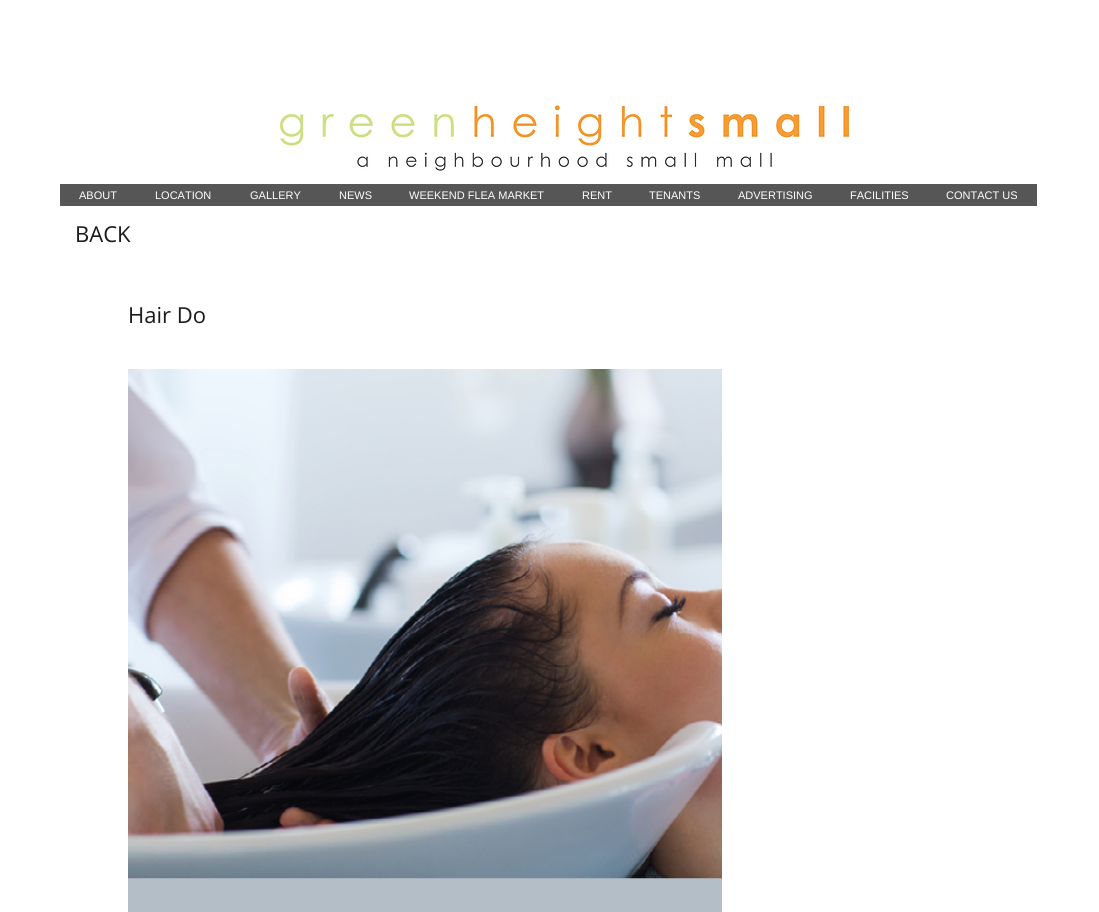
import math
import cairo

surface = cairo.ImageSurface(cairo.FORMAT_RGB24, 1099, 912)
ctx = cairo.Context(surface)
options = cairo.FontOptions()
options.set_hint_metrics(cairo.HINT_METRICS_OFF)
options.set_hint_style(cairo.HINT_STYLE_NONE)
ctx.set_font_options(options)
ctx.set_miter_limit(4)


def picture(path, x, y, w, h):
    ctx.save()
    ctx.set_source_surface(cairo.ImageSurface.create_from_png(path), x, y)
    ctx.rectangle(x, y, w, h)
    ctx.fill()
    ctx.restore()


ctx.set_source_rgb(1, 1, 1)
ctx.paint()
picture("img1.png", 279, 103, 571, 68)
ctx.set_source_rgb(0.337, 0.337, 0.337)
ctx.rectangle(60, 184, 977, 22)
ctx.fill()
ctx.select_font_face("Liberation Sans")
ctx.set_font_size(11)
ctx.set_source_rgb(1, 1, 1)
ctx.move_to(79, 199)
ctx.show_text("ABOUT")
ctx.move_to(155, 199)
ctx.show_text("LOCATION")
ctx.move_to(250, 199)
ctx.show_text("GALLERY")
ctx.move_to(339, 199)
ctx.show_text("NEWS")
ctx.move_to(409, 199)
ctx.show_text("WEEKEND FLEA MARKET")
ctx.move_to(582, 199)
ctx.show_text("RENT")
ctx.move_to(649, 199)
ctx.show_text("TENANTS")
ctx.move_to(738, 199)
ctx.show_text("ADVERTISING")
ctx.move_to(850, 199)
ctx.show_text("FACILITIES")
ctx.move_to(946, 199)
ctx.show_text("CONTACT US")
ctx.select_font_face("Open Sans")
ctx.set_font_size(22)
ctx.set_source_rgb(0.102, 0.102, 0.102)
ctx.move_to(75, 242)
ctx.show_text("BACK")
ctx.move_to(128, 323)
ctx.show_text("Hair Do")
picture("img2.png", 128, 369, 594, 543)
surface.write_to_png("page.png")
